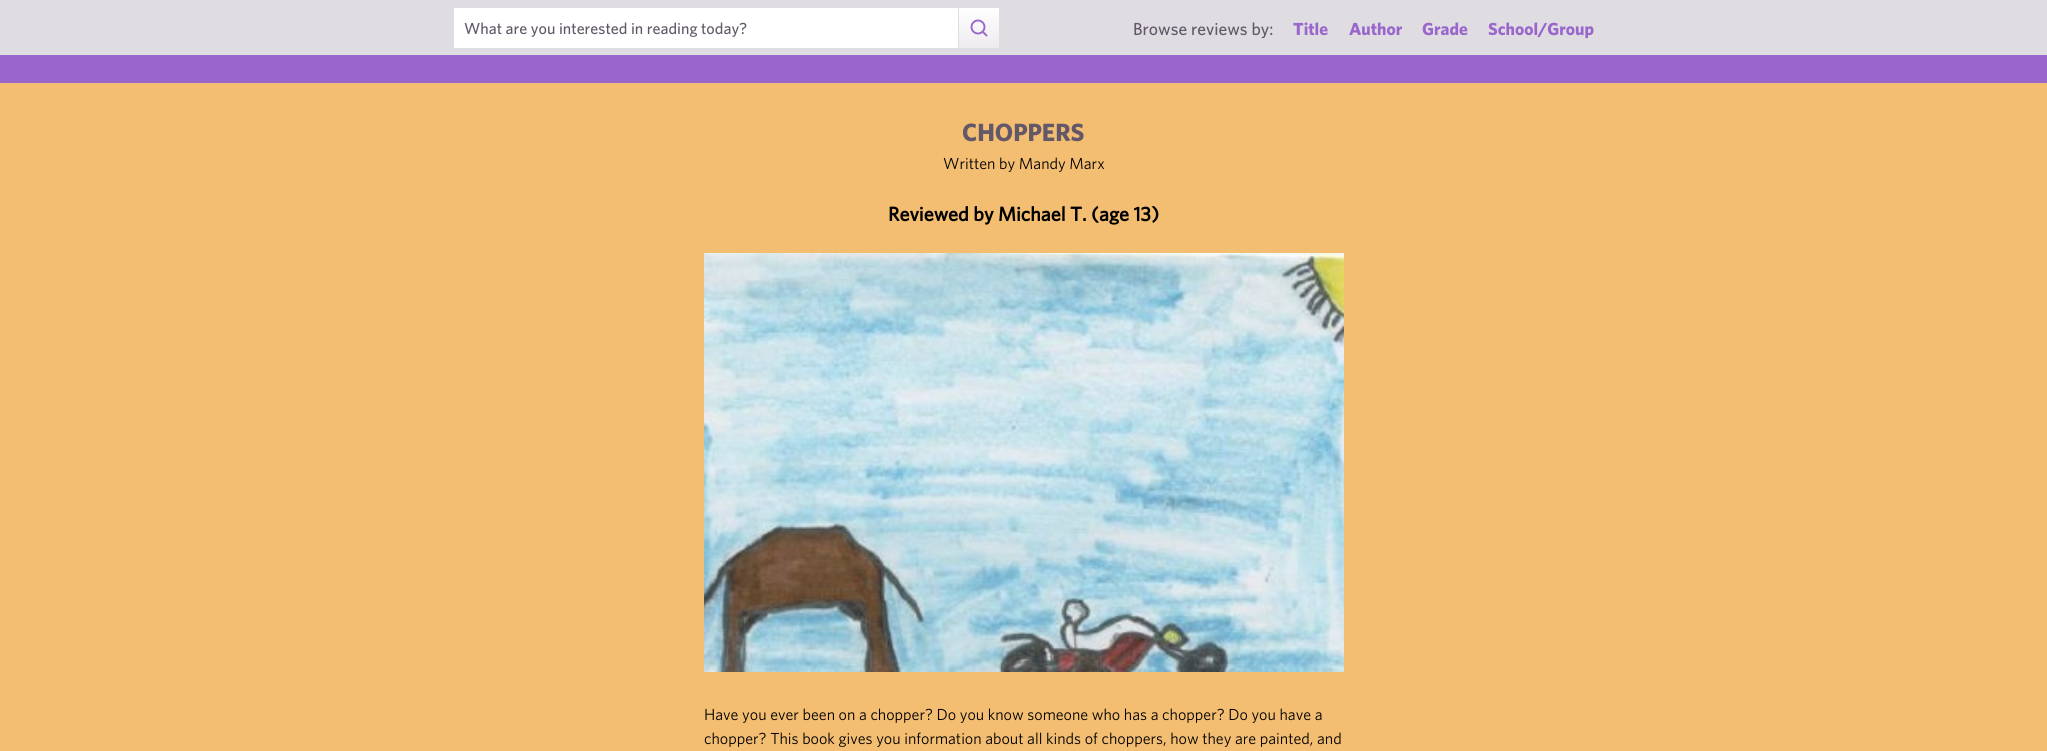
import math
import cairo

surface = cairo.ImageSurface(cairo.FORMAT_RGB24, 2047, 751)
ctx = cairo.Context(surface)
options = cairo.FontOptions()
options.set_hint_metrics(cairo.HINT_METRICS_OFF)
options.set_hint_style(cairo.HINT_STYLE_NONE)
ctx.set_font_options(options)
ctx.set_miter_limit(4)


def picture(path, x, y, w, h):
    ctx.save()
    ctx.set_source_surface(cairo.ImageSurface.create_from_png(path), x, y)
    ctx.rectangle(x, y, w, h)
    ctx.fill()
    ctx.restore()


ctx.set_source_rgb(0.6, 0.4, 0.8)
ctx.paint()
ctx.set_source_rgb(0.878, 0.867, 0.886)
ctx.rectangle(0, 0, 2047, 55)
ctx.fill()
ctx.set_source_rgb(1, 1, 1)
ctx.rectangle(454, 8, 504, 40)
ctx.fill()
ctx.select_font_face("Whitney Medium")
ctx.set_font_size(16)
ctx.set_source_rgb(0.384, 0.345, 0.408)
ctx.move_to(464, 34)
ctx.show_text("What are you interested in reading today?")
gradient = cairo.LinearGradient(960, 48, 960, -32)
gradient.add_color_stop_rgba(0, 0.929, 0.922, 0.933, 1)
gradient.add_color_stop_rgba(0.5, 1, 1, 1, 1)
ctx.set_source(gradient)
ctx.rectangle(959, 8, 40, 40)
ctx.fill()
ctx.arc(978, 27, 6.5, 0, 2 * math.pi)
ctx.set_source_rgb(0.6, 0.4, 0.8)
ctx.set_line_width(1.9)
ctx.stroke()
ctx.new_path()
ctx.move_to(986.5, 35.5)
ctx.line_to(983, 32)
ctx.set_line_cap(cairo.LINE_CAP_ROUND)
ctx.set_line_join(cairo.LINE_JOIN_ROUND)
ctx.stroke()
ctx.set_font_size(17.5)
ctx.set_source_rgb(0.384, 0.345, 0.408)
ctx.move_to(1133, 35)
ctx.show_text("Browse reviews by:")
ctx.select_font_face("Whitney", cairo.FONT_SLANT_NORMAL, cairo.FONT_WEIGHT_BOLD)
ctx.set_source_rgb(0.6, 0.4, 0.8)
ctx.move_to(1293, 35)
ctx.show_text("Title")
ctx.move_to(1349, 35)
ctx.show_text("Author")
ctx.move_to(1422, 35)
ctx.show_text("Grade")
ctx.move_to(1488, 35)
ctx.show_text("School/Group")
ctx.set_source_rgb(0.953, 0.741, 0.447)
ctx.rectangle(0, 83, 2047, 668)
ctx.fill()
ctx.set_font_size(25)
ctx.set_source_rgb(0.384, 0.345, 0.408)
ctx.move_to(962, 141)
ctx.show_text("CHOPPERS")
ctx.select_font_face("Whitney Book")
ctx.set_font_size(16)
ctx.set_source_rgb(0, 0, 0)
ctx.move_to(943, 169)
ctx.show_text("Written by Mandy Marx")
ctx.select_font_face("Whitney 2", cairo.FONT_SLANT_NORMAL, cairo.FONT_WEIGHT_BOLD)
ctx.set_font_size(20)
ctx.move_to(888, 221)
ctx.show_text("Reviewed by Michael T. (age 13)")
picture("img1.png", 704, 253, 640, 419)
ctx.select_font_face("Whitney Book")
ctx.set_font_size(16)
ctx.move_to(704, 720)
ctx.show_text("Have you ever been on a chopper? Do you know someone who has a chopper? Do you have a")
ctx.move_to(704, 744)
ctx.show_text("chopper? This book gives you information about all kinds of choppers, how they are painted, and")
surface.write_to_png("page.png")
